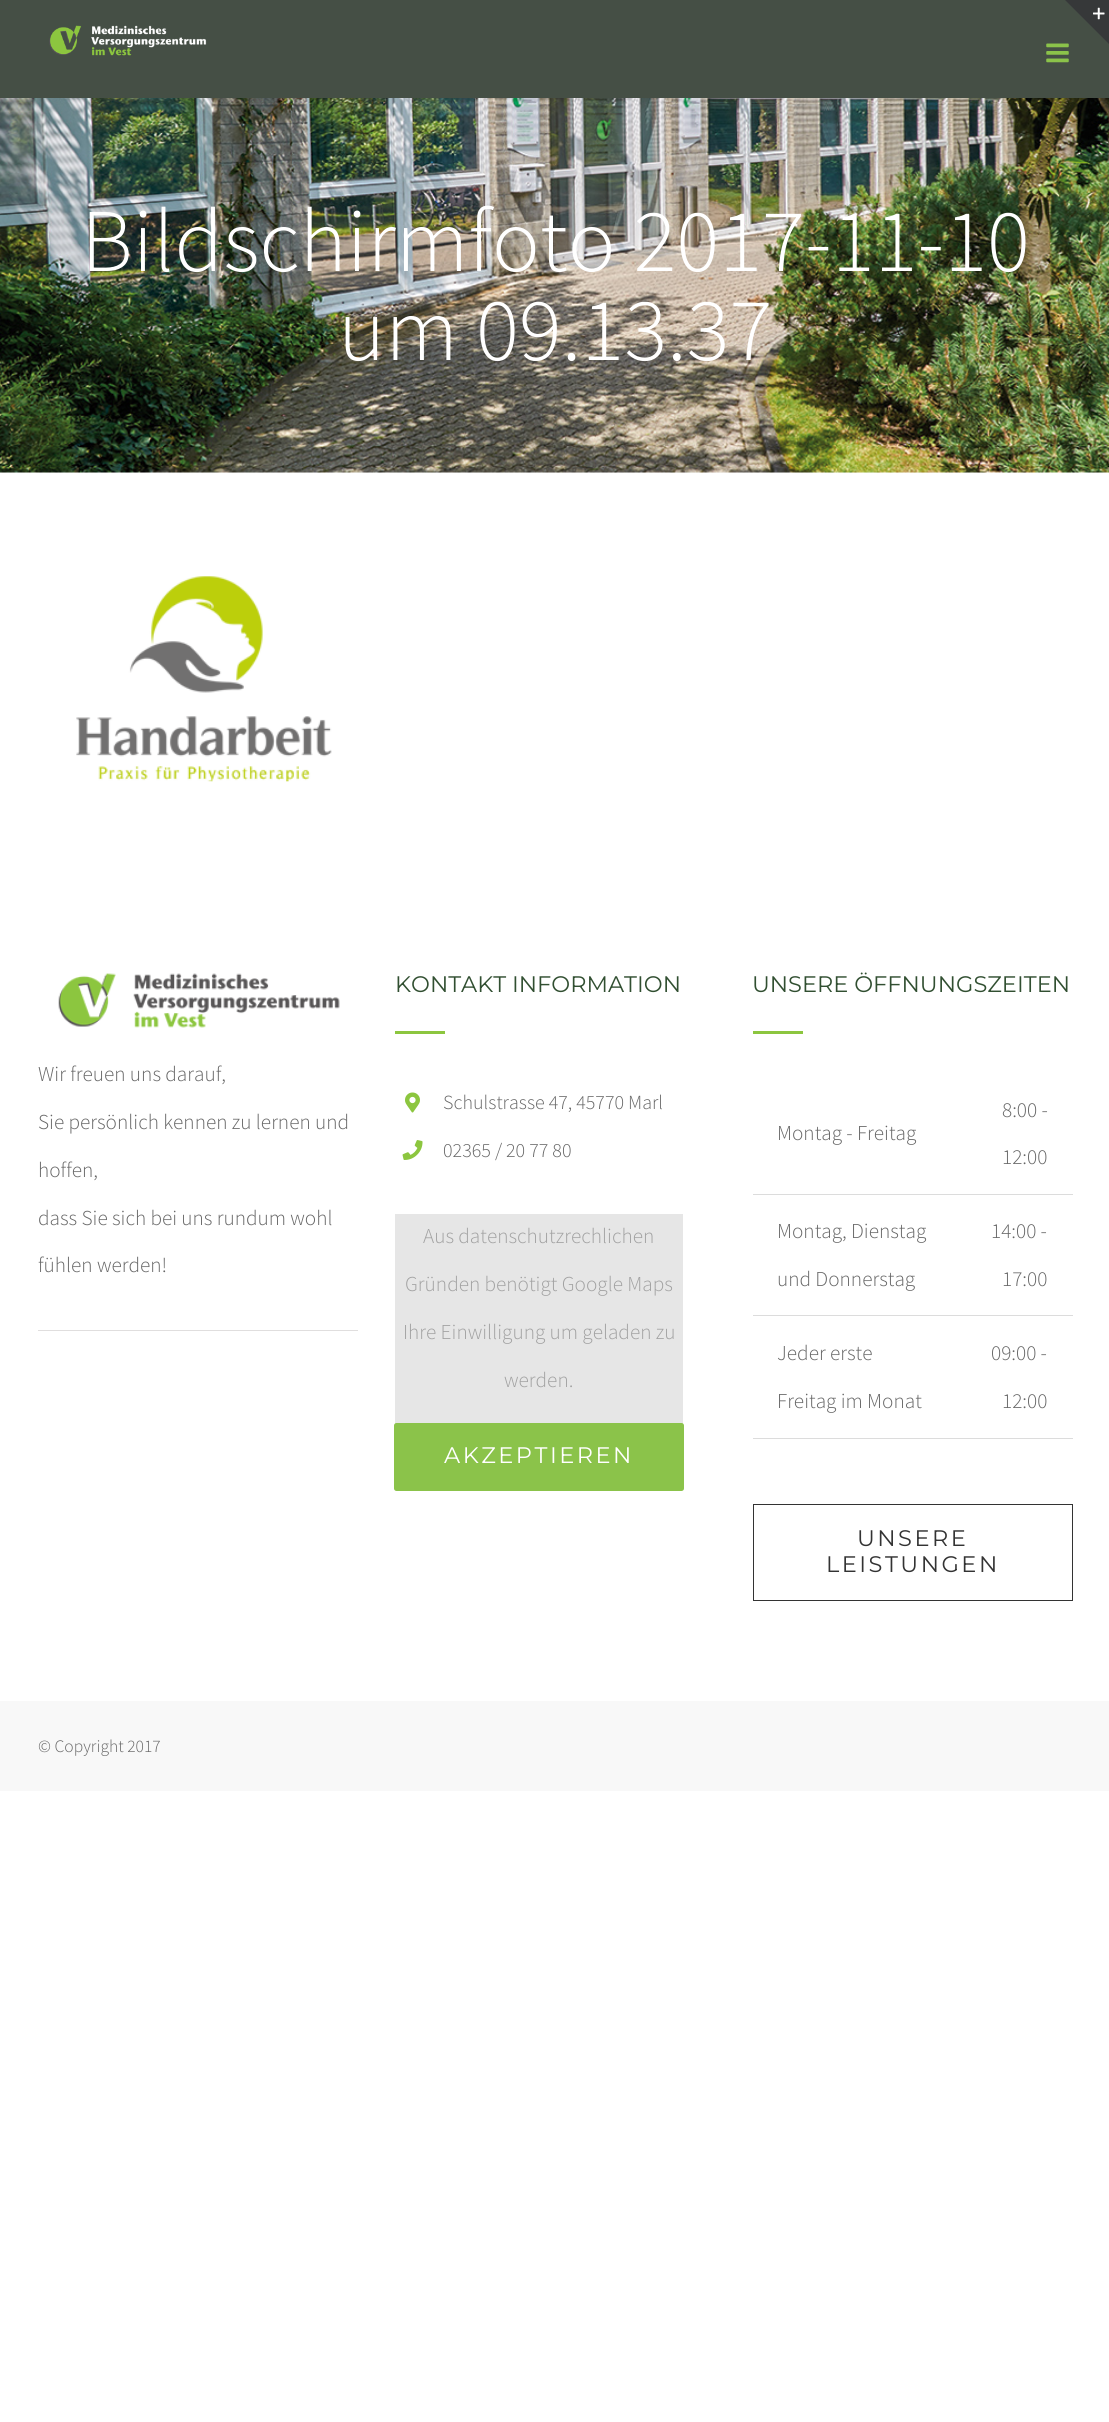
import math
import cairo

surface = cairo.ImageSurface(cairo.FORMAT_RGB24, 1109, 2422)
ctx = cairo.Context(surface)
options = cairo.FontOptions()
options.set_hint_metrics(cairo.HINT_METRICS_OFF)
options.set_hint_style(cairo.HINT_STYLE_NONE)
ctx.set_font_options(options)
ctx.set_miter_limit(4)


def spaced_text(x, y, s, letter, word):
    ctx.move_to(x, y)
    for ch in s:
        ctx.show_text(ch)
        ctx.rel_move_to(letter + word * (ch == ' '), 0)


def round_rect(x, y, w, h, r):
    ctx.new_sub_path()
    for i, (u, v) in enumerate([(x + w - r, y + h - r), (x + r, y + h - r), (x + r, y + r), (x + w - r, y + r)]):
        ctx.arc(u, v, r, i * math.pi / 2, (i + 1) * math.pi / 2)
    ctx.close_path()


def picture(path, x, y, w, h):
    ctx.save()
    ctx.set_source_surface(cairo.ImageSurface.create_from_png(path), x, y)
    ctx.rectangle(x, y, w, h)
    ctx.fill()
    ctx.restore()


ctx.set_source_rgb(1, 1, 1)
ctx.paint()
ctx.set_source_rgb(0.271, 0.31, 0.271)
ctx.rectangle(0, 0, 1109, 98)
ctx.fill()
picture("img1.png", 49, 25, 158, 31)
picture("img2.png", 1046, 43, 23, 20)
ctx.set_source_rgb(0.212, 0.22, 0.224)
ctx.new_path()
ctx.move_to(1065, 0)
ctx.line_to(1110, 0)
ctx.line_to(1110, 45)
ctx.close_path()
ctx.fill()
picture("img3.png", 1093, 7, 12, 13)
ctx.set_source_rgb(0.965, 0.965, 0.965)
ctx.rectangle(0, 472, 1109, 1)
ctx.fill()
picture("img4.png", 0, 98, 1109, 375)
ctx.select_font_face("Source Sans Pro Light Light")
ctx.set_font_size(89.5)
ctx.set_source_rgb(1, 1, 1)
ctx.move_to(81, 271)
ctx.show_text("Bildschirmfoto 2017-11-10")
ctx.move_to(338, 360)
ctx.show_text("um 09.13.37")
picture("img5.png", 76, 576, 256, 206)
picture("img6.png", 58, 973, 282, 55)
ctx.set_font_size(21.25)
ctx.set_source_rgb(0.4, 0.4, 0.4)
ctx.move_to(38, 1081)
ctx.show_text("Wir freuen uns darauf,")
ctx.move_to(38, 1129)
ctx.show_text("Sie persönlich kennen zu lernen und")
ctx.move_to(38, 1177)
ctx.show_text("hoffen,")
ctx.move_to(38, 1225)
ctx.show_text("dass Sie sich bei uns rundum wohl")
ctx.move_to(38, 1272)
ctx.show_text("fühlen werden!")
ctx.set_source_rgb(0.878, 0.871, 0.871)
ctx.rectangle(38, 1330, 320, 1)
ctx.fill()
ctx.select_font_face("Montserrat Thin")
ctx.set_font_size(22.5)
ctx.set_source_rgb(0.192, 0.31, 0.192)
ctx.move_to(395, 992)
ctx.show_text("KONTAKT INFORMATION")
ctx.set_source_rgb(0.549, 0.776, 0.247)
ctx.rectangle(395, 1031, 50, 3)
ctx.fill()
picture("img7.png", 405, 1092, 15, 21)
ctx.select_font_face("Source Sans Pro Light Light")
ctx.set_font_size(20)
ctx.set_source_rgb(0.4, 0.4, 0.4)
ctx.move_to(443, 1109)
ctx.show_text("Schulstrasse 47, 45770 Marl")
picture("img8.png", 402, 1140, 21, 20)
ctx.move_to(443, 1157)
ctx.show_text("02365 / 20 77 80")
ctx.set_source_rgb(0.902, 0.902, 0.902)
ctx.rectangle(395, 1214, 288, 210)
ctx.fill()
ctx.set_font_size(21.25)
ctx.set_source_rgb(0.631, 0.631, 0.631)
ctx.move_to(423, 1243)
ctx.show_text("Aus datenschutzrechlichen")
ctx.move_to(405, 1291)
ctx.show_text("Gründen benötigt Google Maps")
ctx.move_to(403, 1339)
ctx.show_text("Ihre Einwilligung um geladen zu")
ctx.move_to(504, 1387)
ctx.show_text("werden.")
ctx.set_source_rgb(0.545, 0.765, 0.29)
round_rect(394, 1423, 290, 68, 2.5)
ctx.fill()
ctx.select_font_face("Montserrat Thin")
ctx.set_font_size(22.5)
ctx.set_source_rgb(1, 1, 1)
spaced_text(444, 1463, "AKZEPTIEREN", 2.5, 0)
ctx.set_source_rgb(0.192, 0.31, 0.192)
ctx.move_to(752, 992)
ctx.show_text("UNSERE ÖFFNUNGSZEITEN")
ctx.set_source_rgb(0.549, 0.776, 0.247)
ctx.rectangle(753, 1031, 50, 3)
ctx.fill()
ctx.select_font_face("Source Sans Pro Light Light")
ctx.set_font_size(21.25)
ctx.set_source_rgb(0.4, 0.4, 0.4)
ctx.move_to(777, 1140)
ctx.show_text("Montag - Freitag")
ctx.set_source_rgb(0.863, 0.863, 0.863)
ctx.rectangle(753, 1194, 320, 1)
ctx.fill()
ctx.set_source_rgb(0.4, 0.4, 0.4)
ctx.move_to(1002, 1117)
ctx.show_text("8:00 -")
ctx.move_to(1002, 1164)
ctx.show_text("12:00")
ctx.move_to(777, 1238)
ctx.show_text("Montag, Dienstag")
ctx.move_to(777, 1286)
ctx.show_text("und Donnerstag")
ctx.set_source_rgb(0.863, 0.863, 0.863)
ctx.rectangle(753, 1315, 320, 1)
ctx.fill()
ctx.set_source_rgb(0.4, 0.4, 0.4)
ctx.move_to(991, 1238)
ctx.show_text("14:00 -")
ctx.move_to(1002, 1286)
ctx.show_text("17:00")
ctx.move_to(777, 1360)
ctx.show_text("Jeder erste")
ctx.move_to(777, 1408)
ctx.show_text("Freitag im Monat")
ctx.set_source_rgb(0.863, 0.863, 0.863)
ctx.rectangle(753, 1438, 320, 1)
ctx.fill()
ctx.set_source_rgb(0.4, 0.4, 0.4)
ctx.move_to(991, 1360)
ctx.show_text("09:00 -")
ctx.move_to(1002, 1408)
ctx.show_text("12:00")
ctx.rectangle(753.5, 1504.5, 319, 96)
ctx.set_source_rgb(0.2, 0.2, 0.2)
ctx.set_line_width(1)
ctx.stroke()
ctx.select_font_face("Montserrat Thin")
ctx.set_font_size(22.5)
spaced_text(857, 1546, "UNSERE", 2.5, 0)
spaced_text(826, 1572, "LEISTUNGEN", 2.5, 0)
ctx.set_source_rgb(0.969, 0.969, 0.969)
ctx.rectangle(0, 1701, 1109, 90)
ctx.fill()
ctx.select_font_face("Source Sans Pro Light Light")
ctx.set_font_size(17.5)
ctx.set_source_rgb(0.4, 0.4, 0.4)
ctx.move_to(38, 1752)
ctx.show_text("© Copyright 2017")
surface.write_to_png("page.png")
